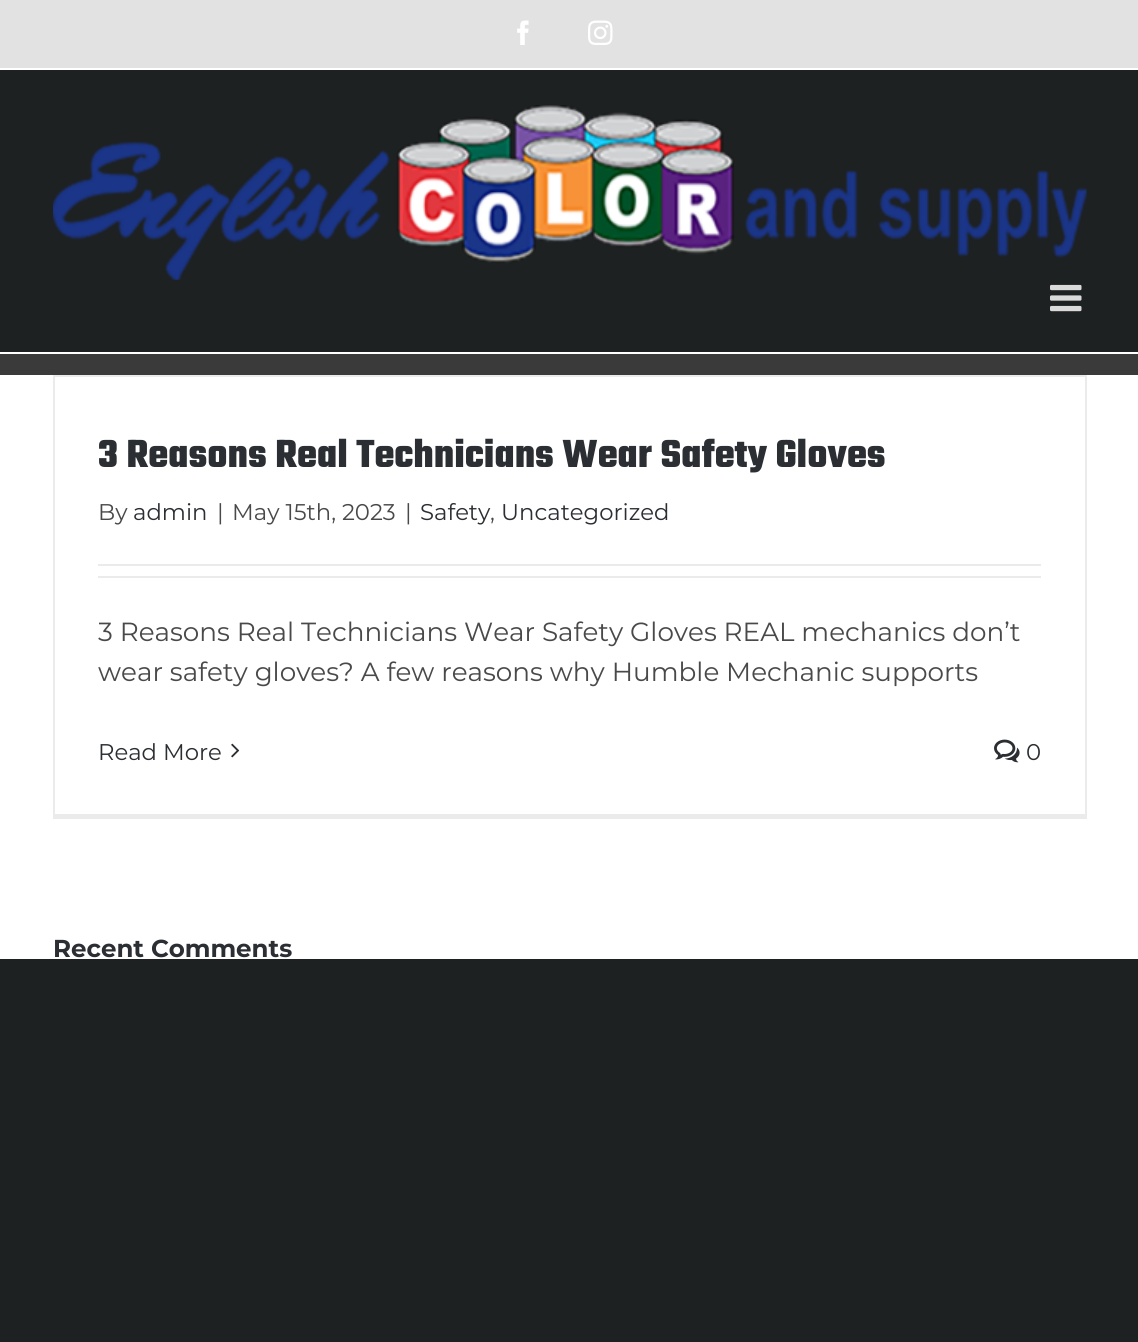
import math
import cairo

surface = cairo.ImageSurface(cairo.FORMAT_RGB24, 1138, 1342)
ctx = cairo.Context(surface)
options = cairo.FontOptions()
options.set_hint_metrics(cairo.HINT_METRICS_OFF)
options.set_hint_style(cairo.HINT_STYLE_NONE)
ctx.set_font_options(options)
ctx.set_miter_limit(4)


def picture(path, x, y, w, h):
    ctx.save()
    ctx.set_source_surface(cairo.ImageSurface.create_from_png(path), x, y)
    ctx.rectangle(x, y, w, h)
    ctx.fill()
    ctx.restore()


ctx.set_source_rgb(0.118, 0.129, 0.129)
ctx.paint()
ctx.set_source_rgb(1, 1, 1)
ctx.rectangle(0, 375, 1138, 584)
ctx.fill()
ctx.set_source_rgb(0.886, 0.886, 0.886)
ctx.rectangle(0, 0, 1138, 68)
ctx.fill()
ctx.set_source_rgb(1, 1, 1)
ctx.rectangle(0, 68, 1138, 2)
ctx.fill()
picture("img1.png", 517, 20, 12, 25)
picture("img2.png", 588, 20, 25, 25)
ctx.rectangle(0, 352, 1138, 2)
ctx.fill()
picture("img3.png", 53, 105, 1034, 175)
picture("img4.png", 1050, 284, 32, 28)
ctx.set_source_rgb(0.227, 0.227, 0.227)
ctx.rectangle(0, 354, 1138, 21)
ctx.fill()
ctx.set_source_rgb(0.918, 0.918, 0.918)
ctx.rectangle(53, 375, 1034, 2)
ctx.fill()
ctx.rectangle(1085, 375, 2, 444)
ctx.fill()
ctx.rectangle(53, 814, 1034, 5)
ctx.fill()
ctx.rectangle(53, 375, 2, 444)
ctx.fill()
ctx.select_font_face("Teko", cairo.FONT_SLANT_NORMAL, cairo.FONT_WEIGHT_BOLD)
ctx.set_font_size(42.25)
ctx.set_source_rgb(0.169, 0.18, 0.196)
ctx.move_to(98, 467)
ctx.show_text("3 Reasons Real Technicians Wear Safety Gloves")
ctx.select_font_face("Montserrat")
ctx.set_font_size(22.75)
ctx.set_source_rgb(0.286, 0.286, 0.286)
ctx.move_to(98, 520)
ctx.show_text("By")
ctx.set_source_rgb(0.169, 0.18, 0.196)
ctx.move_to(133, 520)
ctx.show_text("admin")
ctx.set_source_rgb(0.286, 0.286, 0.286)
ctx.move_to(217, 520)
ctx.show_text("|")
ctx.move_to(232, 520)
ctx.show_text("May 15th, 2023")
ctx.move_to(405, 520)
ctx.show_text("|")
ctx.set_source_rgb(0.169, 0.18, 0.196)
ctx.move_to(420, 520)
ctx.show_text("Safety")
ctx.set_source_rgb(0.286, 0.286, 0.286)
ctx.move_to(490, 520)
ctx.show_text(",")
ctx.set_source_rgb(0.169, 0.18, 0.196)
ctx.move_to(501, 520)
ctx.show_text("Uncategorized")
ctx.set_source_rgb(0.918, 0.918, 0.918)
ctx.rectangle(98, 564, 943, 2)
ctx.fill()
ctx.rectangle(98, 576, 943, 2)
ctx.fill()
ctx.set_font_size(26.25)
ctx.set_source_rgb(0.286, 0.286, 0.286)
ctx.move_to(98, 641)
ctx.show_text("3 Reasons Real Technicians Wear Safety Gloves REAL mechanics don’t")
ctx.move_to(98, 681)
ctx.show_text("wear safety gloves? A few reasons why Humble Mechanic supports")
ctx.set_font_size(22.75)
ctx.set_source_rgb(0.169, 0.18, 0.196)
ctx.move_to(98, 760)
ctx.show_text("Read More")
picture("img5.png", 231, 743, 9, 15)
picture("img6.png", 994, 739, 26, 24)
ctx.move_to(1026, 760)
ctx.show_text("0")
ctx.select_font_face("Montserrat", cairo.FONT_SLANT_NORMAL, cairo.FONT_WEIGHT_BOLD)
ctx.set_font_size(24.5)
ctx.move_to(53, 957)
ctx.show_text("Recent Comments")
surface.write_to_png("page.png")
